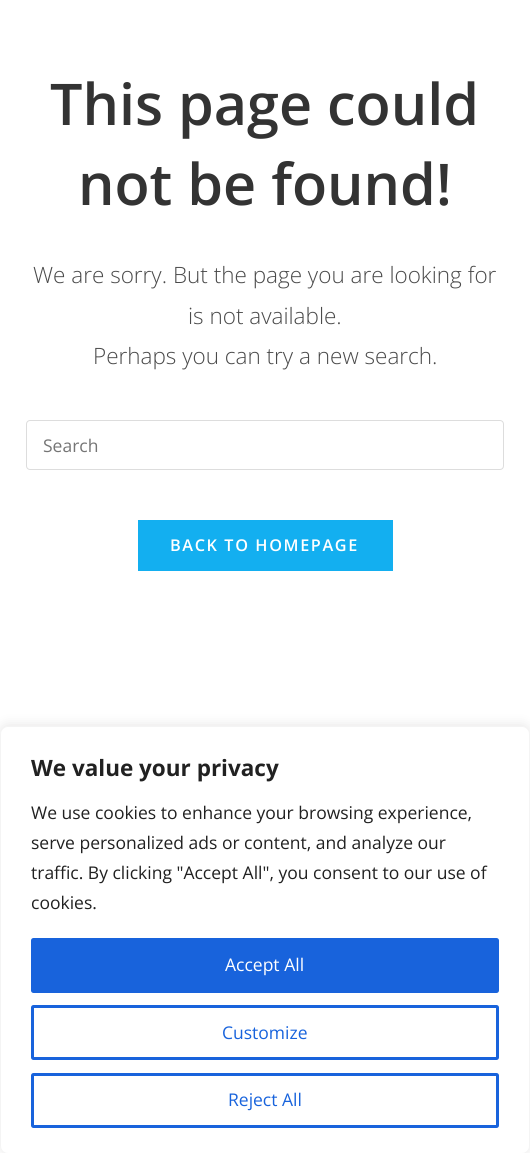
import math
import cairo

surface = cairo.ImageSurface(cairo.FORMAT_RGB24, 530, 1153)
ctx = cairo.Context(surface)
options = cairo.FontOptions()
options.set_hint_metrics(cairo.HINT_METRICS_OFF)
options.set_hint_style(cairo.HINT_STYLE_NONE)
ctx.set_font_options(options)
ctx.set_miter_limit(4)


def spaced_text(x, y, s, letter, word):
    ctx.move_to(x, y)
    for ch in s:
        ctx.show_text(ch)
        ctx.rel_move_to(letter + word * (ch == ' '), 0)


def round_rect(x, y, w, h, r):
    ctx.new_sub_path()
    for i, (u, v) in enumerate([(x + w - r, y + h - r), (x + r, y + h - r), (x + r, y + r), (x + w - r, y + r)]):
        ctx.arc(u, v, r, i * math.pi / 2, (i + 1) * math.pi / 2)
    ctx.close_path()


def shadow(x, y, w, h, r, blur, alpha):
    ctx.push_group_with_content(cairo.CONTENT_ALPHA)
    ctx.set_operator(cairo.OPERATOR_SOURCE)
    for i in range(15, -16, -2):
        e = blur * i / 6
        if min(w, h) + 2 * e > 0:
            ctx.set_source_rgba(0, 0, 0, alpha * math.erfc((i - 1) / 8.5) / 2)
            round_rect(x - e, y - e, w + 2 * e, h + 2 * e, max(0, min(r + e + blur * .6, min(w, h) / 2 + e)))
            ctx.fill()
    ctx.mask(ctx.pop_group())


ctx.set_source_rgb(1, 1, 1)
ctx.paint()
ctx.select_font_face("Open Sans SemiBold")
ctx.set_font_size(57.5)
ctx.set_source_rgb(0.2, 0.2, 0.2)
ctx.move_to(50, 125)
ctx.show_text("This page could")
ctx.move_to(78, 205)
ctx.show_text("not be found!")
ctx.select_font_face("Open Sans Light")
ctx.set_font_size(22.5)
ctx.set_source_rgb(0.29, 0.29, 0.29)
ctx.move_to(33, 283)
ctx.show_text("We are sorry. But the page you are looking for")
ctx.move_to(188, 324)
ctx.show_text("is not available.")
ctx.move_to(93, 364)
ctx.show_text("Perhaps you can try a new search.")
round_rect(26.5, 420.5, 477, 49, 3.5)
ctx.set_source_rgb(0.867, 0.867, 0.867)
ctx.set_line_width(1)
ctx.stroke()
ctx.select_font_face("Open Sans")
ctx.set_font_size(17.5)
ctx.set_source_rgb(0.459, 0.459, 0.459)
ctx.move_to(43, 452)
ctx.show_text("Search")
ctx.set_source_rgb(0.075, 0.686, 0.941)
ctx.rectangle(138, 520, 255, 51)
ctx.fill()
ctx.select_font_face("Open Sans SemiBold")
ctx.set_font_size(16.25)
ctx.set_source_rgb(1, 1, 1)
spaced_text(170, 551, "BACK TO HOMEPAGE", 1.6, 0)
ctx.set_source_rgb(0.675, 0.671, 0.671)
shadow(0, 725, 530, 428, 8, 6, 0.3)
ctx.set_source_rgb(1, 1, 1)
round_rect(0.5, 726.5, 529, 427, 7.5)
ctx.fill_preserve()
ctx.set_source_rgb(0.957, 0.957, 0.957)
ctx.stroke()
ctx.select_font_face("Open Sans", cairo.FONT_SLANT_NORMAL, cairo.FONT_WEIGHT_BOLD)
ctx.set_font_size(22.5)
ctx.set_source_rgb(0.129, 0.129, 0.129)
ctx.move_to(31, 776)
ctx.show_text("We value your privacy")
ctx.select_font_face("Open Sans")
ctx.set_font_size(17.5)
ctx.move_to(31, 819)
ctx.show_text("We use cookies to enhance your browsing experience,")
ctx.move_to(31, 849)
ctx.show_text("serve personalized ads or content, and analyze our")
ctx.move_to(31, 879)
ctx.show_text("traffic. By clicking \"Accept All\", you consent to our use of")
ctx.move_to(31, 909)
ctx.show_text("cookies.")
ctx.set_source_rgb(0.094, 0.388, 0.863)
round_rect(32.5, 939.5, 465, 52, 1)
ctx.fill_preserve()
ctx.set_line_width(3)
ctx.stroke()
ctx.set_source_rgb(1, 1, 1)
ctx.move_to(225, 971)
ctx.show_text("Accept All")
round_rect(32.5, 1006.5, 465, 52, 1)
ctx.set_source_rgb(0.094, 0.388, 0.863)
ctx.stroke()
ctx.move_to(222, 1039)
ctx.show_text("Customize")
round_rect(32.5, 1074.5, 465, 52, 1)
ctx.stroke()
ctx.move_to(228, 1106)
ctx.show_text("Reject All")
surface.write_to_png("page.png")
